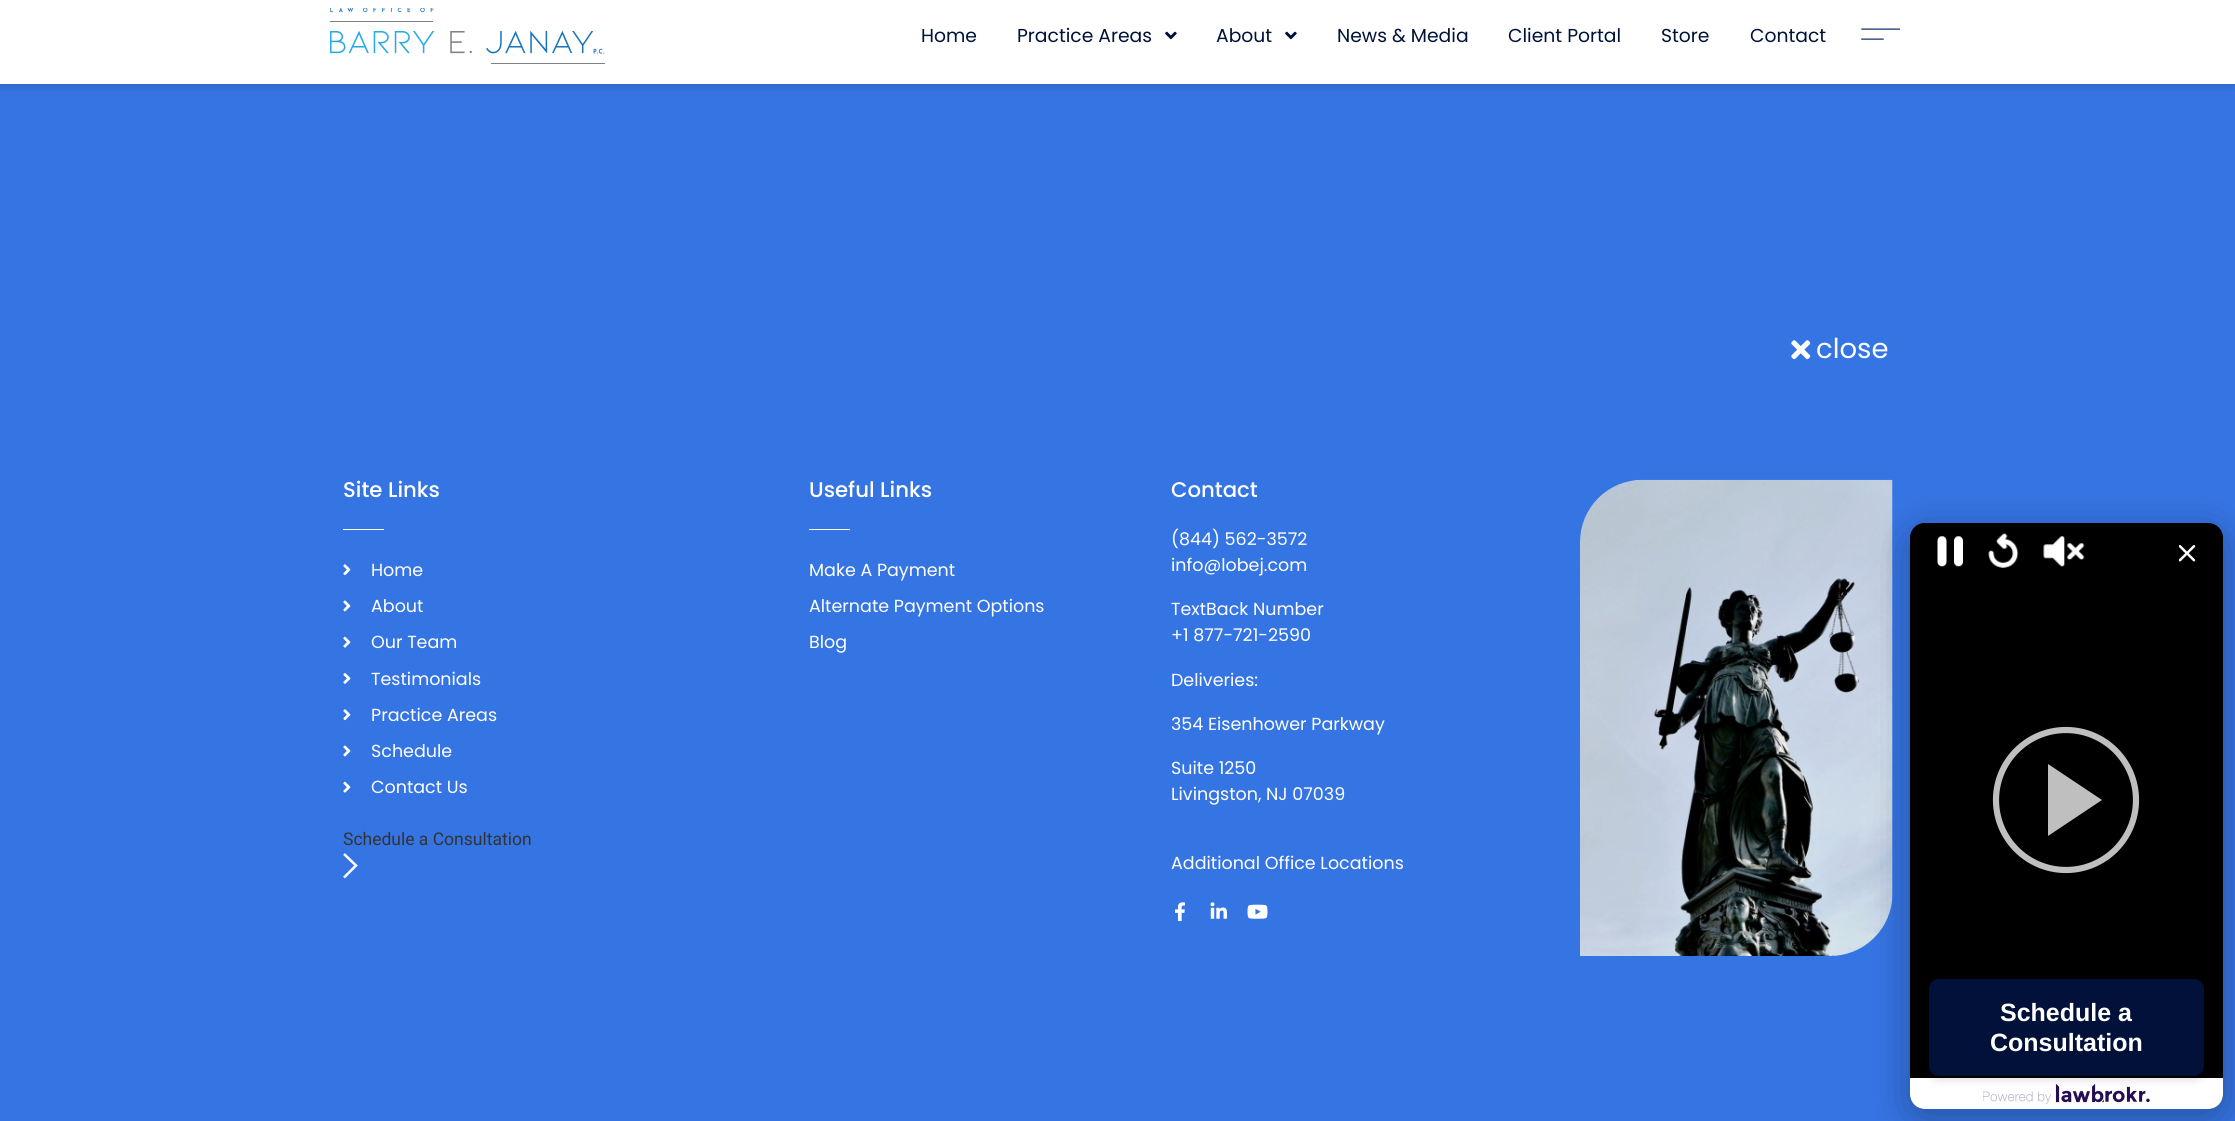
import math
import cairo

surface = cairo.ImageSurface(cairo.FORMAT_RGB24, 2235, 1121)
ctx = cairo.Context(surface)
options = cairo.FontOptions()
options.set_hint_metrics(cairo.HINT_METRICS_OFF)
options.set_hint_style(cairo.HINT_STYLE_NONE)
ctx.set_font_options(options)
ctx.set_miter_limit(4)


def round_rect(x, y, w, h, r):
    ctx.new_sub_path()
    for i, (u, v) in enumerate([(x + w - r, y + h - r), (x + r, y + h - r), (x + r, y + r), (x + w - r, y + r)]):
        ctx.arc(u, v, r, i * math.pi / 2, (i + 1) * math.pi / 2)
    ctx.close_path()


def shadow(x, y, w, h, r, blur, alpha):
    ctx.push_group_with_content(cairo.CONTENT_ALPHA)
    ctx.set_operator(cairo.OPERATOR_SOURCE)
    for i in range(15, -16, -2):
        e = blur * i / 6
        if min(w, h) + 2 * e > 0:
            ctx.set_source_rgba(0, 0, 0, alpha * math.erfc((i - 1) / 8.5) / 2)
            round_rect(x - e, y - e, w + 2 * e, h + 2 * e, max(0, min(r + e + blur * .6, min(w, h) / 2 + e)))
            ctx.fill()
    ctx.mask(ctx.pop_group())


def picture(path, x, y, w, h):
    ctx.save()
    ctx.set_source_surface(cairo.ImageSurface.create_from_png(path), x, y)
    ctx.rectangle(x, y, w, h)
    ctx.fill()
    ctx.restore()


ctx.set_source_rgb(0.208, 0.455, 0.89)
ctx.paint()
ctx.set_source_rgb(0, 0, 0)
shadow(0, -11, 2235, 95, 0, 6, 0.17)
ctx.set_source_rgb(1, 1, 1)
ctx.rectangle(0, 0, 2235, 84)
ctx.fill()
picture("img1.png", 330, 8, 275, 56)
ctx.select_font_face("Poppins")
ctx.set_font_size(18.75)
ctx.set_source_rgb(0, 0.071, 0.227)
ctx.move_to(921, 42)
ctx.show_text("Home")
ctx.move_to(1017, 42)
ctx.show_text("Practice Areas")
picture("img2.png", 1165, 31, 12, 9)
ctx.move_to(1216, 42)
ctx.show_text("About")
picture("img2.png", 1285, 31, 12, 9)
ctx.move_to(1337, 42)
ctx.show_text("News & Media")
ctx.move_to(1508, 42)
ctx.show_text("Client Portal")
ctx.move_to(1661, 42)
ctx.show_text("Store")
ctx.move_to(1750, 42)
ctx.show_text("Contact")
picture("img3.png", 1861, 28, 39, 12)
picture("img4.png", 1791, 340, 20, 20)
ctx.set_font_size(27.5)
ctx.set_source_rgb(1, 1, 1)
ctx.move_to(1816, 358)
ctx.show_text("close")
ctx.select_font_face("Poppins Medium")
ctx.set_font_size(21.25)
ctx.move_to(343, 497)
ctx.show_text("Site Links")
ctx.rectangle(343, 529, 41, 1)
ctx.fill()
picture("img5.png", 343, 564, 8, 12)
ctx.select_font_face("Poppins")
ctx.set_font_size(17.5)
ctx.move_to(371, 576)
ctx.show_text("Home")
picture("img6.png", 343, 600, 8, 12)
ctx.move_to(371, 612)
ctx.show_text("About")
picture("img7.png", 343, 636, 8, 12)
ctx.move_to(371, 648)
ctx.show_text("Our Team")
picture("img8.png", 343, 673, 8, 11)
ctx.move_to(371, 685)
ctx.show_text("Testimonials")
picture("img5.png", 343, 709, 8, 12)
ctx.move_to(371, 721)
ctx.show_text("Practice Areas")
picture("img6.png", 343, 745, 8, 12)
ctx.move_to(371, 757)
ctx.show_text("Schedule")
picture("img7.png", 343, 781, 8, 12)
ctx.move_to(371, 793)
ctx.show_text("Contact Us")
ctx.select_font_face("Roboto")
ctx.set_source_rgb(0.2, 0.2, 0.2)
ctx.move_to(343, 845)
ctx.show_text("Schedule a Consultation")
ctx.new_path()
ctx.move_to(344, 854)
ctx.line_to(356, 865.5)
ctx.line_to(344, 877.5)
ctx.set_source_rgb(1, 1, 1)
ctx.set_line_width(2.5)
ctx.stroke()
ctx.select_font_face("Poppins Medium")
ctx.set_font_size(21.25)
ctx.move_to(809, 497)
ctx.show_text("Useful Links")
ctx.rectangle(809, 529, 41, 1)
ctx.fill()
ctx.select_font_face("Poppins")
ctx.set_font_size(17.5)
ctx.move_to(809, 576)
ctx.show_text("Make A Payment")
ctx.move_to(809, 612)
ctx.show_text("Alternate Payment Options")
ctx.move_to(809, 648)
ctx.show_text("Blog")
ctx.select_font_face("Poppins Medium")
ctx.set_font_size(21.25)
ctx.move_to(1171, 497)
ctx.show_text("Contact")
ctx.select_font_face("Poppins")
ctx.set_font_size(17.5)
ctx.move_to(1171, 545)
ctx.show_text("(844) 562-3572")
ctx.move_to(1171, 571)
ctx.show_text("info@lobej.com")
ctx.move_to(1171, 615)
ctx.show_text("TextBack Number")
ctx.move_to(1171, 641)
ctx.show_text("+1 877-721-2590")
ctx.move_to(1171, 686)
ctx.show_text("Deliveries:")
ctx.move_to(1171, 730)
ctx.show_text("354 Eisenhower Parkway")
ctx.move_to(1171, 774)
ctx.show_text("Suite 1250")
ctx.move_to(1171, 800)
ctx.show_text("Livingston, NJ 07039")
ctx.move_to(1171, 869)
ctx.show_text("Additional Office Locations")
picture("img9.png", 1175, 902, 10, 20)
picture("img10.png", 1210, 902, 17, 17)
picture("img11.png", 1247, 904, 21, 15)
picture("img12.png", 1580, 479, 313, 477)
ctx.set_source_rgb(0, 0, 0)
shadow(1910, 533, 313, 586, 15, 20, 0.3)
ctx.set_source_rgb(0, 0, 0)
round_rect(1910, 523, 313, 586, 15)
ctx.fill()
gradient = cairo.LinearGradient(2066, 523, 2066, 585)
gradient.add_color_stop_rgba(0, 0, 0, 0, 0.6)
gradient.add_color_stop_rgba(1, 0, 0, 0, 0)
ctx.set_source(gradient)
ctx.new_path()
ctx.move_to(1925, 523)
ctx.line_to(2208, 523)
ctx.curve_to(2216.5, 523, 2223, 529.5, 2223, 538)
ctx.line_to(2223, 585)
ctx.line_to(1910, 585)
ctx.line_to(1910, 538)
ctx.curve_to(1910, 529.5, 1916.5, 523, 1925, 523)
ctx.close_path()
ctx.fill()
picture("img13.png", 1937, 536, 26, 31)
picture("img14.png", 1988, 533, 31, 35)
picture("img15.png", 2043, 536, 42, 31)
picture("img16.png", 2179, 545, 17, 17)
ctx.arc(2066, 800, 70, 0, 2 * math.pi)
ctx.set_source_rgb(0.749, 0.749, 0.749)
ctx.set_line_width(6.2)
ctx.stroke()
ctx.new_path()
ctx.move_to(2048, 764)
ctx.line_to(2048, 836)
ctx.line_to(2102, 800)
ctx.close_path()
ctx.fill()
ctx.set_source_rgb(1, 1, 1)
ctx.new_path()
ctx.move_to(1910, 1078)
ctx.line_to(2223, 1078)
ctx.line_to(2223, 1094)
ctx.curve_to(2223, 1102.5, 2216.5, 1109, 2208, 1109)
ctx.line_to(1925, 1109)
ctx.curve_to(1916.5, 1109, 1910, 1102.5, 1910, 1094)
ctx.close_path()
ctx.fill()
picture("img17.png", 1983, 1084, 167, 20)
ctx.set_source_rgb(0, 0, 0)
shadow(1929, 981, 275, 98, 10, 5, 0.15)
ctx.set_source_rgb(0.004, 0.067, 0.227)
round_rect(1929, 979, 275, 97, 10)
ctx.fill()
ctx.select_font_face("Liberation Sans", cairo.FONT_SLANT_NORMAL, cairo.FONT_WEIGHT_BOLD)
ctx.set_font_size(25)
ctx.set_source_rgb(1, 1, 1)
ctx.move_to(2000, 1021)
ctx.show_text("Schedule a")
ctx.move_to(1990, 1051)
ctx.show_text("Consultation")
surface.write_to_png("page.png")
